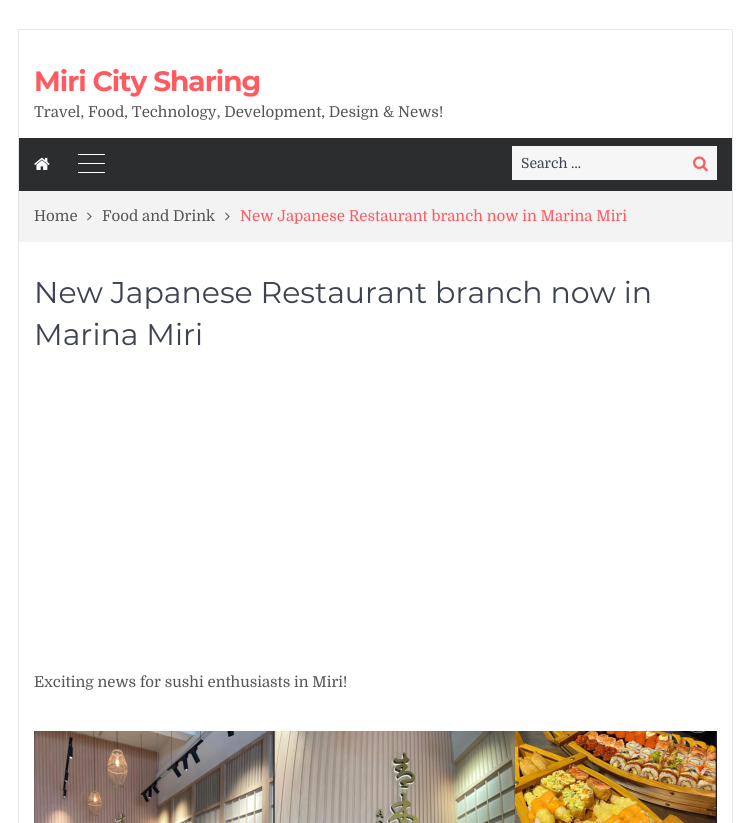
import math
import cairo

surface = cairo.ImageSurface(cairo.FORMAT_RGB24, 751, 823)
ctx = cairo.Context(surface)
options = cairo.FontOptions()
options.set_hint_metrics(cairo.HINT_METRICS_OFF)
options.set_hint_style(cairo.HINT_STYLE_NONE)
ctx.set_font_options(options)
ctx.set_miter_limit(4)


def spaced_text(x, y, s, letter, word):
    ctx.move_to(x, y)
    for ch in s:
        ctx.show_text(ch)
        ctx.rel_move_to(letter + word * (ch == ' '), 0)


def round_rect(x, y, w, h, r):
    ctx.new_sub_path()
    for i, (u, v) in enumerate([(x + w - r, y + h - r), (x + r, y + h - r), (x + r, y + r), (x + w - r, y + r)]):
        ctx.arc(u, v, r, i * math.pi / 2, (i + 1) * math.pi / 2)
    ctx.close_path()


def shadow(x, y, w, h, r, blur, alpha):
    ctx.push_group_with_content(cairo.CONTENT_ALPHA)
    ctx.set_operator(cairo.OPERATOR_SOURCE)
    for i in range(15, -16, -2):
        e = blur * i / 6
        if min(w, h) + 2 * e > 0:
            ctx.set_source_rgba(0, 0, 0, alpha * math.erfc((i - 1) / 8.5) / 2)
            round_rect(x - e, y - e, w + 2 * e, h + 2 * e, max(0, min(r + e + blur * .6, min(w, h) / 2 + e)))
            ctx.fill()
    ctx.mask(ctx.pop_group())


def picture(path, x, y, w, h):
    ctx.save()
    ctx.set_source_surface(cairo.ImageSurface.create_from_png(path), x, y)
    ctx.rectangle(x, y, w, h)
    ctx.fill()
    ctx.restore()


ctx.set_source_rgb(1, 1, 1)
ctx.paint()
ctx.save()
ctx.set_fill_rule(cairo.FILL_RULE_EVEN_ODD)
ctx.new_path()
ctx.move_to(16, 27)
ctx.line_to(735, 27)
ctx.line_to(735, 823)
ctx.line_to(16, 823)
ctx.close_path()
ctx.move_to(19, 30)
ctx.line_to(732, 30)
ctx.line_to(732, 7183)
ctx.line_to(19, 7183)
ctx.close_path()
ctx.clip()
ctx.set_source_rgb(0.6, 0.6, 0.6)
shadow(19, 30, 713, 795, 0, 0.5, 1)
ctx.restore()
ctx.select_font_face("Montserrat", cairo.FONT_SLANT_NORMAL, cairo.FONT_WEIGHT_BOLD)
ctx.set_font_size(28)
ctx.set_source_rgb(1, 0.353, 0.373)
spaced_text(34, 91, "Miri City Sharing", -1, 0)
ctx.select_font_face("Domine")
ctx.set_font_size(15)
ctx.set_source_rgb(0.333, 0.333, 0.333)
ctx.move_to(34, 117)
ctx.show_text("Travel, Food, Technology, Development, Design & News!")
ctx.set_source_rgb(0.169, 0.176, 0.18)
ctx.rectangle(19, 138, 713, 53)
ctx.fill()
picture("img1.png", 34, 157, 16, 13)
ctx.set_source_rgb(1, 1, 1)
ctx.rectangle(78, 154, 27, 1)
ctx.fill()
ctx.rectangle(78, 163, 27, 1)
ctx.fill()
ctx.rectangle(78, 172, 27, 1)
ctx.fill()
ctx.set_source_rgb(0.961, 0.961, 0.961)
ctx.rectangle(512, 146, 205, 34)
ctx.fill()
ctx.set_font_size(14)
ctx.set_source_rgb(0.239, 0.263, 0.318)
ctx.move_to(521, 168)
ctx.show_text("Search …")
picture("img2.png", 693, 156, 15, 16)
ctx.set_source_rgb(0.953, 0.953, 0.953)
ctx.rectangle(19, 191, 713, 51)
ctx.fill()
ctx.set_font_size(15)
ctx.set_source_rgb(0.333, 0.333, 0.333)
ctx.move_to(34, 221)
ctx.show_text("Home")
picture("img3.png", 87, 212, 5, 9)
ctx.move_to(102, 221)
ctx.show_text("Food and Drink")
picture("img3.png", 225, 212, 5, 9)
ctx.set_source_rgb(1, 0.353, 0.373)
ctx.move_to(240, 221)
ctx.show_text("New Japanese Restaurant branch now in Marina Miri")
ctx.select_font_face("Montserrat")
ctx.set_font_size(30)
ctx.set_source_rgb(0.239, 0.263, 0.318)
ctx.move_to(34, 303)
ctx.show_text("New Japanese Restaurant branch now in")
ctx.move_to(34, 345)
ctx.show_text("Marina Miri")
ctx.select_font_face("Domine")
ctx.set_font_size(15)
ctx.set_source_rgb(0.333, 0.333, 0.333)
ctx.move_to(34, 687)
ctx.show_text("Exciting news for sushi enthusiasts in Miri!")
picture("img4.png", 34, 731, 683, 92)
surface.write_to_png("page.png")
